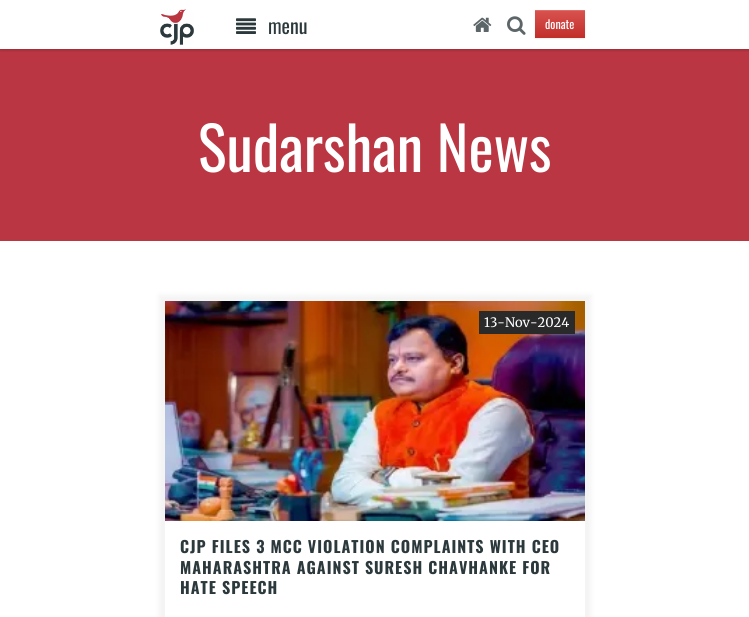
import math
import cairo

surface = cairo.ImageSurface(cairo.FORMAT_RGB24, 749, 617)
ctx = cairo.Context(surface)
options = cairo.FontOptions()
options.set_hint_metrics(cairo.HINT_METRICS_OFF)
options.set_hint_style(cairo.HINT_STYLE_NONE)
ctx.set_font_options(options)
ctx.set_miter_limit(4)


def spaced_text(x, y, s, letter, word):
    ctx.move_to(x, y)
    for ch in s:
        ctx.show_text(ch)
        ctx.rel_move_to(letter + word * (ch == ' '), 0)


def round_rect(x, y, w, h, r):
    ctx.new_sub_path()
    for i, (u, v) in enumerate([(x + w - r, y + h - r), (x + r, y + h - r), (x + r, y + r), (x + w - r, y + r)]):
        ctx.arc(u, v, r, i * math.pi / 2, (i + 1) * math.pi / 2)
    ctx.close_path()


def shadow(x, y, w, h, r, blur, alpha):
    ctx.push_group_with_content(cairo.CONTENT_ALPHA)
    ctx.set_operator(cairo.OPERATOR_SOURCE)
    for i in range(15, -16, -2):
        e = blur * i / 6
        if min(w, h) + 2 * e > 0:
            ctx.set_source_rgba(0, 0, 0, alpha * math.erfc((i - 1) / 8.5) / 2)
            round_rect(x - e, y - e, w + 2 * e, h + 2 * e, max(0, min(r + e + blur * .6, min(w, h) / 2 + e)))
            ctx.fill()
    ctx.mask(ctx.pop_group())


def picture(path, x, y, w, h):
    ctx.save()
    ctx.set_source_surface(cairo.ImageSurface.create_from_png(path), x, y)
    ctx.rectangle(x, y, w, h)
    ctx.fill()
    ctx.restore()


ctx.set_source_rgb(1, 1, 1)
ctx.paint()
ctx.set_source_rgb(0.729, 0.212, 0.259)
ctx.rectangle(0, 49, 749, 192)
ctx.fill()
ctx.save()
ctx.rectangle(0, 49, 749, 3)
ctx.clip()
ctx.set_source_rgb(0, 0, 0)
shadow(0, 1, 749, 49, 0, 1.5, 0.22)
ctx.restore()
picture("img1.png", 160, 9, 34, 36)
picture("img2.png", 236, 18, 20, 16)
ctx.select_font_face("Oswald")
ctx.set_font_size(20)
ctx.set_source_rgb(0.173, 0.224, 0.235)
ctx.move_to(268, 34)
ctx.show_text("menu")
picture("img3.png", 473, 17, 19, 15)
picture("img4.png", 507, 16, 19, 19)
ctx.set_source_rgb(0, 0, 0)
shadow(535, 11, 50, 28, 0, 0.5, 0.07)
gradient = cairo.LinearGradient(560, 10, 560, 38)
gradient.add_color_stop_rgba(0, 0.851, 0.325, 0.31, 1)
gradient.add_color_stop_rgba(1, 0.757, 0.18, 0.165, 1)
ctx.set_source(gradient)
ctx.rectangle(535, 11, 50, 27)
ctx.fill()
ctx.set_source_rgb(0.875, 0.424, 0.412)
ctx.rectangle(535, 10, 50, 1)
ctx.fill()
ctx.set_font_size(12)
ctx.set_source_rgb(1, 1, 1)
ctx.move_to(545, 29)
ctx.show_text("donate")
ctx.set_font_size(60)
ctx.move_to(198, 172)
ctx.show_text("Sudarshan News")
ctx.save()
ctx.set_fill_rule(cairo.FILL_RULE_EVEN_ODD)
ctx.new_path()
ctx.move_to(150, 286)
ctx.line_to(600, 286)
ctx.line_to(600, 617)
ctx.line_to(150, 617)
ctx.close_path()
ctx.move_to(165, 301)
ctx.line_to(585, 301)
ctx.line_to(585, 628)
ctx.line_to(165, 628)
ctx.close_path()
ctx.clip()
ctx.set_source_rgb(0.91, 0.91, 0.91)
shadow(159, 295, 432, 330, 0, 2.5, 0.5)
ctx.restore()
picture("img5.png", 165, 301, 420, 220)
ctx.set_source_rgb(0.165, 0.165, 0.165)
ctx.rectangle(479, 311, 96, 23)
ctx.fill()
ctx.select_font_face("Merriweather")
ctx.set_font_size(13)
ctx.set_source_rgb(1, 1, 1)
ctx.move_to(484, 327)
ctx.show_text("13-Nov-2024")
ctx.select_font_face("Oswald", cairo.FONT_SLANT_NORMAL, cairo.FONT_WEIGHT_BOLD)
ctx.set_font_size(16)
ctx.set_source_rgb(0.173, 0.224, 0.235)
spaced_text(180, 553, "CJP FILES 3 MCC VIOLATION COMPLAINTS WITH CEO", 1, 0)
spaced_text(180, 574, "MAHARASHTRA AGAINST SURESH CHAVHANKE FOR", 1, 0)
spaced_text(180, 594, "HATE SPEECH", 1, 0)
surface.write_to_png("page.png")
